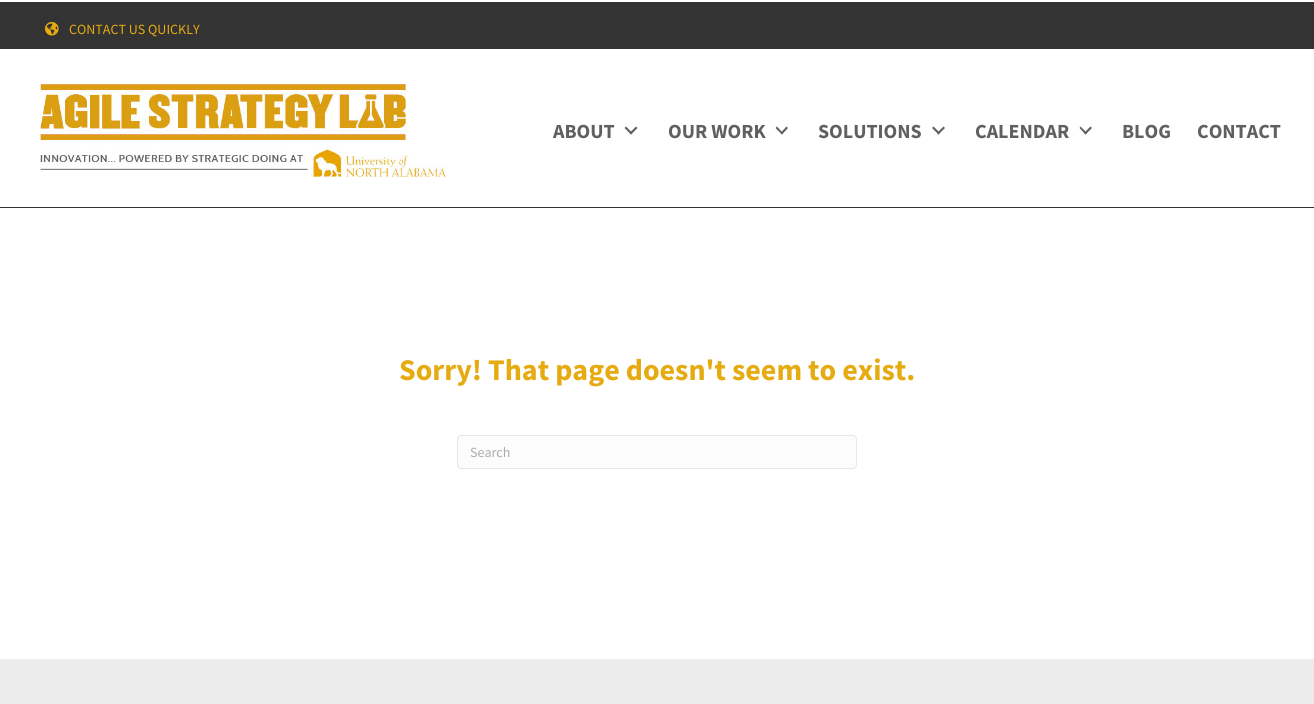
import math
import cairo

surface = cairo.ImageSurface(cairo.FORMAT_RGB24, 1314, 704)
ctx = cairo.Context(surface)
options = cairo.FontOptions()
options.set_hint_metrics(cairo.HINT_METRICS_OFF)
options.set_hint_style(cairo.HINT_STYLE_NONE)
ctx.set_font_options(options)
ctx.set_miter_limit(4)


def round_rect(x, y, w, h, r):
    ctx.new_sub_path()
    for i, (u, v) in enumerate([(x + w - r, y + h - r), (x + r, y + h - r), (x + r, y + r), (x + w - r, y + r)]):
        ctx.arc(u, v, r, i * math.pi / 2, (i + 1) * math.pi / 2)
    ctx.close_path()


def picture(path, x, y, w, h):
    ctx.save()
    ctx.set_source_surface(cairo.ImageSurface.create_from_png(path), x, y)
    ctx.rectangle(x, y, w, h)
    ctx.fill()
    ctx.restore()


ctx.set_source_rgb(1, 1, 1)
ctx.paint()
ctx.set_source_rgb(0.2, 0.2, 0.2)
ctx.rectangle(0, 2, 1314, 47)
ctx.fill()
picture("img1.png", 45, 22, 14, 14)
ctx.select_font_face("Source Sans Pro")
ctx.set_font_size(14)
ctx.set_source_rgb(0.902, 0.671, 0.063)
ctx.move_to(69, 34)
ctx.show_text("CONTACT US QUICKLY")
ctx.set_source_rgb(0.2, 0.2, 0.2)
ctx.rectangle(0, 207, 1314, 1)
ctx.fill()
picture("img2.png", 40, 84, 406, 93)
ctx.select_font_face("Source Sans Pro", cairo.FONT_SLANT_NORMAL, cairo.FONT_WEIGHT_BOLD)
ctx.set_font_size(20)
ctx.set_source_rgb(0.373, 0.376, 0.384)
ctx.move_to(553, 138)
ctx.show_text("ABOUT")
ctx.new_path()
ctx.move_to(636, 126.5)
ctx.line_to(637.5, 128)
ctx.line_to(631, 134.5)
ctx.line_to(629.5, 133)
ctx.close_path()
ctx.fill()
ctx.new_path()
ctx.move_to(626, 126.5)
ctx.line_to(632.5, 133)
ctx.line_to(631, 134.5)
ctx.line_to(624.5, 128)
ctx.close_path()
ctx.fill()
ctx.move_to(668, 138)
ctx.show_text("OUR WORK")
ctx.new_path()
ctx.move_to(786.5, 126.5)
ctx.line_to(788, 128)
ctx.line_to(782, 134.5)
ctx.line_to(780.5, 133)
ctx.close_path()
ctx.fill()
ctx.new_path()
ctx.move_to(777, 126.5)
ctx.line_to(783, 133)
ctx.line_to(782, 134.5)
ctx.line_to(775.5, 128)
ctx.close_path()
ctx.fill()
ctx.move_to(818, 138)
ctx.show_text("SOLUTIONS")
ctx.new_path()
ctx.move_to(943.5, 126.5)
ctx.line_to(945, 128)
ctx.line_to(938.5, 134.5)
ctx.line_to(937, 133)
ctx.close_path()
ctx.fill()
ctx.new_path()
ctx.move_to(933.5, 126.5)
ctx.line_to(940, 133)
ctx.line_to(938.5, 134.5)
ctx.line_to(932, 128)
ctx.close_path()
ctx.fill()
ctx.move_to(975, 138)
ctx.show_text("CALENDAR")
ctx.new_path()
ctx.move_to(1090.5, 126.5)
ctx.line_to(1092, 128)
ctx.line_to(1085.5, 134.5)
ctx.line_to(1084, 133)
ctx.close_path()
ctx.fill()
ctx.new_path()
ctx.move_to(1080.5, 126.5)
ctx.line_to(1087, 133)
ctx.line_to(1085.5, 134.5)
ctx.line_to(1079.5, 128)
ctx.close_path()
ctx.fill()
ctx.move_to(1122, 138)
ctx.show_text("BLOG")
ctx.move_to(1197, 138)
ctx.show_text("CONTACT")
ctx.set_font_size(30)
ctx.set_source_rgb(0.902, 0.671, 0.063)
ctx.move_to(399, 380)
ctx.show_text("Sorry! That page doesn't seem to exist.")
ctx.set_source_rgb(0.988, 0.988, 0.988)
round_rect(457.5, 435.5, 399, 33, 3.5)
ctx.fill_preserve()
ctx.set_source_rgb(0.902, 0.902, 0.902)
ctx.set_line_width(1)
ctx.stroke()
ctx.select_font_face("Source Sans Pro")
ctx.set_font_size(14)
ctx.set_source_rgb(0.675, 0.675, 0.675)
ctx.move_to(470, 457)
ctx.show_text("Search")
ctx.set_source_rgb(0.922, 0.922, 0.922)
ctx.rectangle(0, 659, 1314, 45)
ctx.fill()
surface.write_to_png("page.png")
